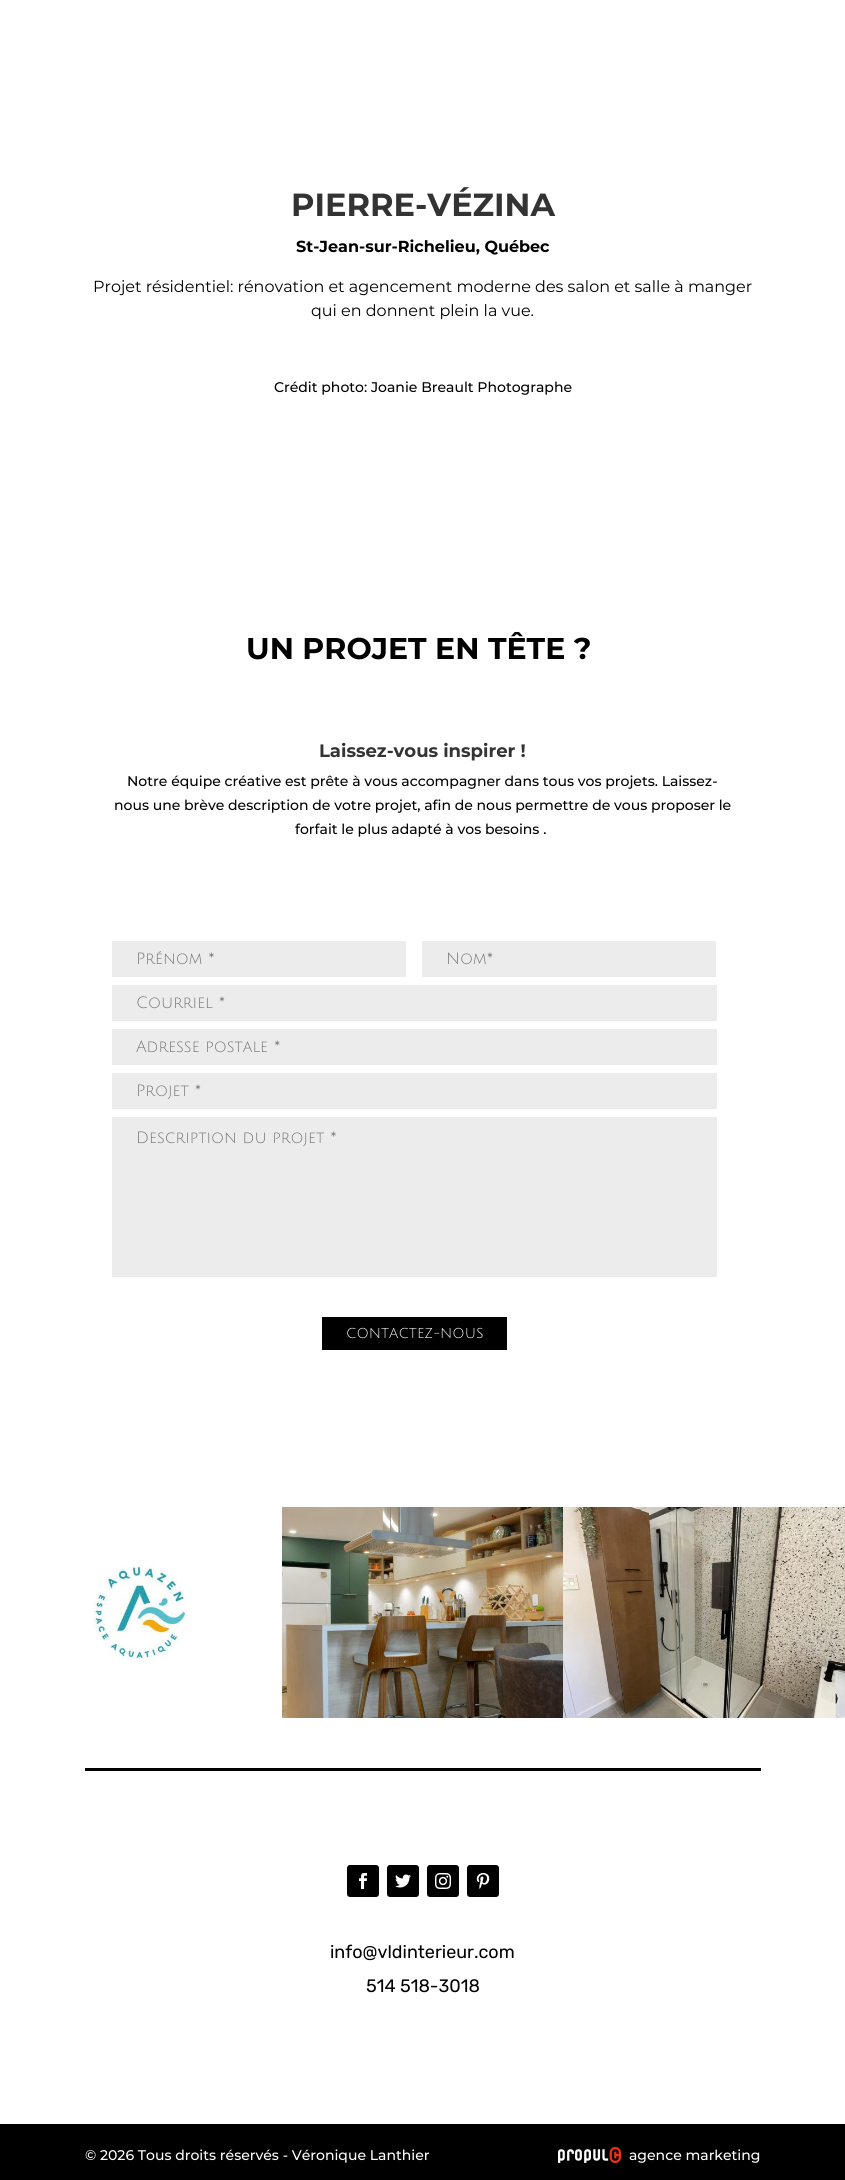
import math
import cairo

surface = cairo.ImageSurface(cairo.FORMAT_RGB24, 845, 2180)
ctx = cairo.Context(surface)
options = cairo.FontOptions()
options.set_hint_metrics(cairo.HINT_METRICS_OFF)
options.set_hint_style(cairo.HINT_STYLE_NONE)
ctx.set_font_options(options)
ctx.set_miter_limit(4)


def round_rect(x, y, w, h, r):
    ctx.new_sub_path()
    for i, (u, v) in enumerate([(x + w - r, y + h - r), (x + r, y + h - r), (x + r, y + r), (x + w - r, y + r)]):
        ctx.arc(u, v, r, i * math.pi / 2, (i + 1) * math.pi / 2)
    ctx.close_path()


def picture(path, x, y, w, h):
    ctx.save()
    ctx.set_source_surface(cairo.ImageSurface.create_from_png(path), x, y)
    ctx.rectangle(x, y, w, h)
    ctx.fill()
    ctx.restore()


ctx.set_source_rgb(1, 1, 1)
ctx.paint()
ctx.select_font_face("Montserrat", cairo.FONT_SLANT_NORMAL, cairo.FONT_WEIGHT_BOLD)
ctx.set_font_size(32)
ctx.set_source_rgb(0.2, 0.2, 0.2)
ctx.move_to(291, 216)
ctx.show_text("PIERRE-VÉZINA")
ctx.set_font_size(16)
ctx.set_source_rgb(0, 0, 0)
ctx.move_to(296, 252)
ctx.show_text("St-Jean-sur-Richelieu, Québec")
ctx.select_font_face("Montserrat")
ctx.move_to(93, 292)
ctx.show_text("Projet résidentiel: rénovation et agencement moderne des salon et salle à manger")
ctx.move_to(311, 316)
ctx.show_text("qui en donnent plein la vue.")
ctx.select_font_face("Montserrat Medium")
ctx.set_font_size(14)
ctx.move_to(274, 392)
ctx.show_text("Crédit photo: Joanie Breault Photographe")
ctx.select_font_face("Montserrat", cairo.FONT_SLANT_NORMAL, cairo.FONT_WEIGHT_BOLD)
ctx.set_font_size(30)
ctx.move_to(246, 659)
ctx.show_text("UN PROJET EN TÊTE ?")
ctx.set_font_size(18)
ctx.set_source_rgb(0.2, 0.2, 0.2)
ctx.move_to(319, 757)
ctx.show_text("Laissez-vous inspirer !")
ctx.select_font_face("Montserrat Medium")
ctx.set_font_size(14)
ctx.set_source_rgb(0, 0, 0)
ctx.move_to(127, 786)
ctx.show_text("Notre équipe créative est prête à vous accompagner dans tous vos projets. Laissez-")
ctx.move_to(114, 810)
ctx.show_text("nous une brève description de votre projet, afin de nous permettre de vous proposer le")
ctx.move_to(295, 834)
ctx.show_text("forfait le plus adapté à vos besoins .")
ctx.set_source_rgb(0.922, 0.925, 0.929)
ctx.rectangle(112, 941, 294, 36)
ctx.fill()
ctx.select_font_face("Julius Sans One")
ctx.set_font_size(16)
ctx.set_source_rgb(0.459, 0.459, 0.459)
ctx.move_to(136, 964)
ctx.show_text("Prénom *")
ctx.set_source_rgb(0.922, 0.925, 0.929)
ctx.rectangle(422, 941, 294, 36)
ctx.fill()
ctx.set_source_rgb(0.459, 0.459, 0.459)
ctx.move_to(446, 964)
ctx.show_text("Nom*")
ctx.set_source_rgb(0.922, 0.925, 0.929)
ctx.rectangle(112, 985, 605, 36)
ctx.fill()
ctx.set_source_rgb(0.459, 0.459, 0.459)
ctx.move_to(136, 1008)
ctx.show_text("Courriel *")
ctx.set_source_rgb(0.922, 0.925, 0.929)
ctx.rectangle(112, 1029, 605, 36)
ctx.fill()
ctx.set_source_rgb(0.459, 0.459, 0.459)
ctx.move_to(136, 1052)
ctx.show_text("Adresse postale *")
ctx.set_source_rgb(0.922, 0.925, 0.929)
ctx.rectangle(112, 1073, 605, 36)
ctx.fill()
ctx.set_source_rgb(0.459, 0.459, 0.459)
ctx.move_to(136, 1096)
ctx.show_text("Projet *")
ctx.set_source_rgb(0.922, 0.925, 0.929)
ctx.rectangle(112, 1117, 605, 160)
ctx.fill()
ctx.set_source_rgb(0.459, 0.459, 0.459)
ctx.move_to(136, 1143)
ctx.show_text("Description du projet *")
ctx.set_source_rgb(0, 0, 0)
ctx.rectangle(322, 1317, 185, 33)
ctx.fill()
ctx.set_font_size(14)
ctx.set_source_rgb(1, 1, 1)
ctx.move_to(346, 1338)
ctx.show_text("CONTACTEZ-NOUS")
picture("img1.png", 93, 1560, 94, 102)
picture("img2.png", 282, 1507, 281, 211)
picture("img3.png", 563, 1507, 282, 211)
ctx.set_source_rgb(0, 0, 0)
ctx.rectangle(85, 1768, 676, 3)
ctx.fill()
round_rect(347, 1865, 32, 32, 3)
ctx.fill()
picture("img4.png", 359, 1873, 8, 16)
round_rect(387, 1865, 32, 32, 3)
ctx.fill()
picture("img5.png", 395, 1874, 16, 14)
round_rect(427, 1865, 32, 32, 3)
ctx.fill()
picture("img6.png", 435, 1873, 16, 16)
round_rect(467, 1865, 32, 32, 3)
ctx.fill()
picture("img7.png", 476, 1873, 14, 16)
ctx.select_font_face("Rubik")
ctx.set_font_size(18)
ctx.move_to(330, 1958)
ctx.show_text("info@vldinterieur.com")
ctx.move_to(366, 1992)
ctx.show_text("514 518-3018")
ctx.rectangle(0, 2124, 845, 56)
ctx.fill()
ctx.select_font_face("Montserrat Medium")
ctx.set_font_size(14)
ctx.set_source_rgb(1, 1, 1)
ctx.move_to(85, 2160)
ctx.show_text("© 2026 Tous droits réservés - Véronique Lanthier")
picture("img8.png", 558, 2147, 63, 16)
ctx.move_to(629, 2160)
ctx.show_text("agence marketing")
surface.write_to_png("page.png")
